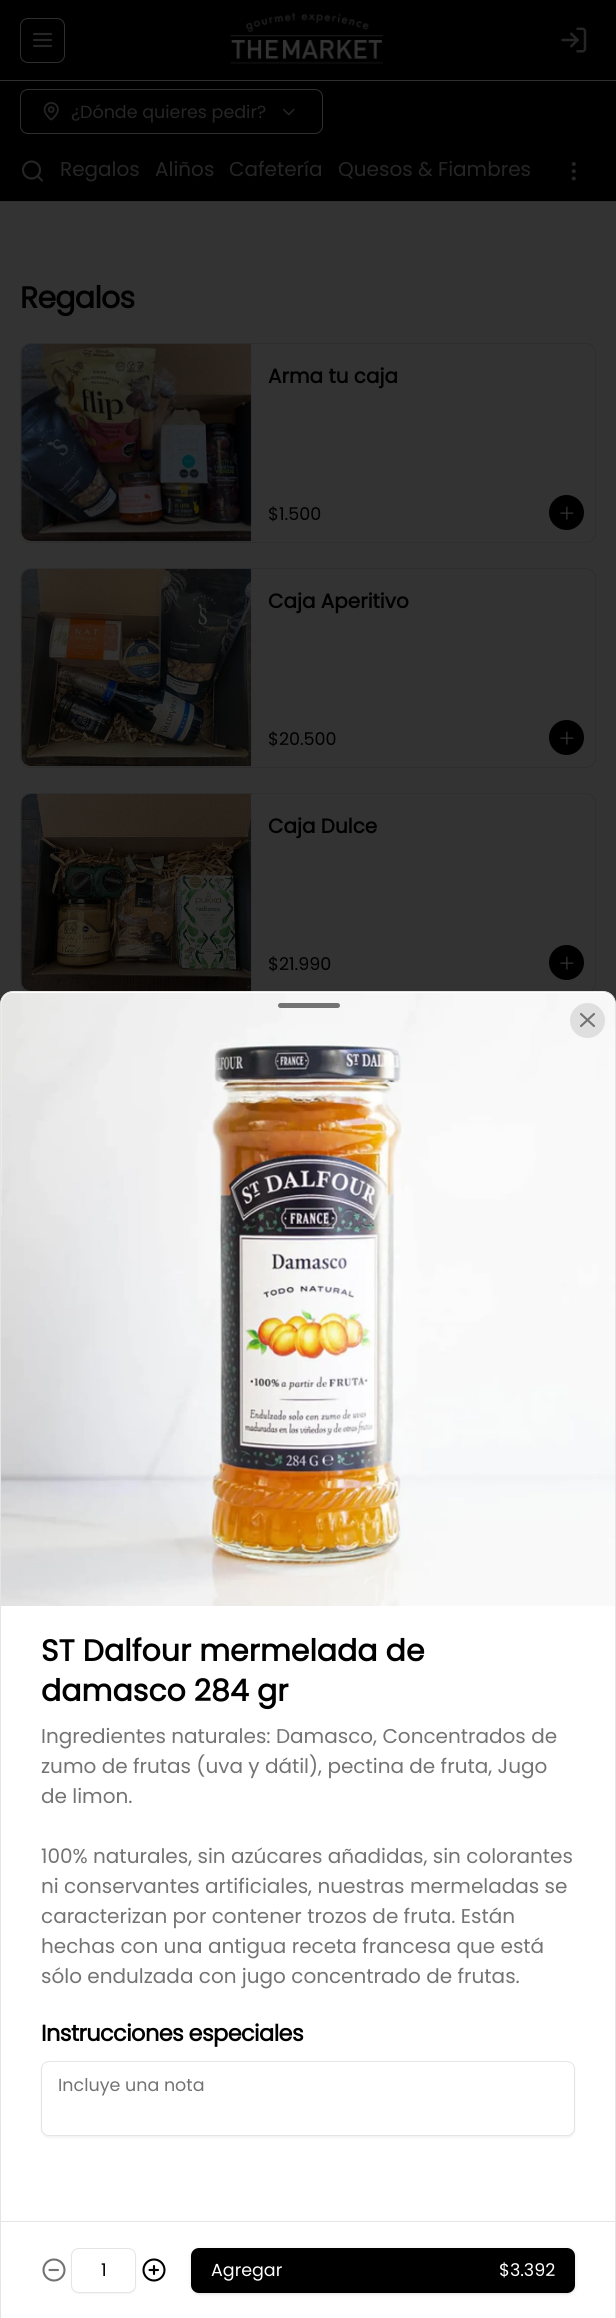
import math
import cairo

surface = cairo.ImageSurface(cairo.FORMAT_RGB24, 616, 2318)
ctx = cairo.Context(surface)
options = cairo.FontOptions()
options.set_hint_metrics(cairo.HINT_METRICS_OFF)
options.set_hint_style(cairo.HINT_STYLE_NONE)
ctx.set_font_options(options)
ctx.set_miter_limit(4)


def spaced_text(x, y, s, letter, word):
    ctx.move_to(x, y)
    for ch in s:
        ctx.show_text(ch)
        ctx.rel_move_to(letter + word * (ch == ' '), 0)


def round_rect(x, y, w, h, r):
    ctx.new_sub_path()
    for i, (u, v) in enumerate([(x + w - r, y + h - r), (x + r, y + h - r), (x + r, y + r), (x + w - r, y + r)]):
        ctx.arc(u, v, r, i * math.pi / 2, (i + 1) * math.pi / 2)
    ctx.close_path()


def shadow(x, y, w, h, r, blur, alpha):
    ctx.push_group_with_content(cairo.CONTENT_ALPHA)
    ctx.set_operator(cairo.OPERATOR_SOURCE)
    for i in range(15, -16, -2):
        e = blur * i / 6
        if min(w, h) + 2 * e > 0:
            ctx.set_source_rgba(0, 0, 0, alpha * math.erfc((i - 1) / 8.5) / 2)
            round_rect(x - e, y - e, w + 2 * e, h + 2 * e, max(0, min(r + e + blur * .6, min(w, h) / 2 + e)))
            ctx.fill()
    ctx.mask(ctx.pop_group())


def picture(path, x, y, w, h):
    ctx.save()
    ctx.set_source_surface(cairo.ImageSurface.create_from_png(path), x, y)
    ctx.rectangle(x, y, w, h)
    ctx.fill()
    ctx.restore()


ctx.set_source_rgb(0.2, 0.2, 0.2)
ctx.paint()
ctx.set_source_rgb(0, 0, 0)
ctx.rectangle(0, 0, 616, 80)
ctx.fill()
ctx.set_source_rgb(0.18, 0.18, 0.18)
ctx.rectangle(0, 80, 616, 1)
ctx.fill()
round_rect(20.5, 18.5, 44, 44, 7.5)
ctx.set_line_width(1)
ctx.stroke()
ctx.new_path()
ctx.move_to(34, 40)
ctx.line_to(51, 40)
ctx.move_to(34, 34)
ctx.line_to(51, 34)
ctx.move_to(34, 46)
ctx.line_to(51, 46)
ctx.set_source_rgb(0.145, 0.145, 0.145)
ctx.set_line_width(2.1)
ctx.set_line_cap(cairo.LINE_CAP_ROUND)
ctx.set_line_join(cairo.LINE_JOIN_ROUND)
ctx.stroke()
picture("img1.png", 229, 12, 155, 52)
picture("img2.png", 561, 27, 26, 26)
ctx.set_source_rgb(0, 0, 0)
ctx.rectangle(0, 81, 616, 120)
ctx.fill()
round_rect(20.5, 89.5, 302, 44, 7.5)
ctx.set_source_rgb(0.18, 0.18, 0.18)
ctx.set_line_width(1)
ctx.set_line_cap(cairo.LINE_CAP_BUTT)
ctx.set_line_join(cairo.LINE_JOIN_MITER)
ctx.stroke()
picture("img3.png", 43, 102, 16, 19)
ctx.select_font_face("Poppins")
ctx.set_font_size(17.5)
ctx.set_source_rgb(0.145, 0.145, 0.145)
ctx.move_to(71, 118)
ctx.show_text("¿Dónde quieres pedir?")
picture("img4.png", 283, 108, 12, 8)
ctx.set_source_rgb(0.18, 0.18, 0.18)
ctx.rectangle(0, 201, 616, 1)
ctx.fill()
ctx.arc(31.5, 170, 8.5, 0, 2 * math.pi)
ctx.set_source_rgb(0.145, 0.145, 0.145)
ctx.set_line_width(2.1)
ctx.stroke()
ctx.new_path()
ctx.move_to(42, 180.5)
ctx.line_to(37.5, 176)
ctx.set_line_cap(cairo.LINE_CAP_ROUND)
ctx.set_line_join(cairo.LINE_JOIN_ROUND)
ctx.stroke()
ctx.set_font_size(20)
ctx.move_to(60, 176)
ctx.show_text("Regalos")
ctx.move_to(155, 176)
ctx.show_text("Aliños")
ctx.move_to(229, 176)
ctx.show_text("Cafetería")
ctx.move_to(338, 176)
ctx.show_text("Quesos & Fiambres")
ctx.new_path()
ctx.arc(573.8, 171.2, 1, 0, 2 * math.pi)
ctx.set_line_cap(cairo.LINE_CAP_BUTT)
ctx.set_line_join(cairo.LINE_JOIN_MITER)
ctx.stroke()
ctx.arc(573.8, 164, 1, 0, 2 * math.pi)
ctx.stroke()
ctx.arc(573.8, 178.5, 1, 0, 2 * math.pi)
ctx.stroke()
ctx.select_font_face("Poppins", cairo.FONT_SLANT_NORMAL, cairo.FONT_WEIGHT_BOLD)
ctx.set_font_size(30)
ctx.set_source_rgb(0, 0, 0)
spaced_text(20, 308, "Regalos", -0.75, 0)
round_rect(20.5, 343.5, 575, 199, 9.5)
ctx.set_source_rgb(0.18, 0.18, 0.18)
ctx.set_line_width(1)
ctx.stroke()
picture("img5.png", 21, 343, 231, 199)
ctx.set_font_size(20)
ctx.set_source_rgb(0, 0, 0)
ctx.move_to(268, 383)
ctx.show_text("Arma tu caja")
ctx.select_font_face("Poppins")
ctx.set_font_size(17.5)
ctx.move_to(268, 520)
ctx.show_text("$1.500")
ctx.new_path()
ctx.arc(566.5, 512.5, 17.5, 0, 2 * math.pi)
ctx.fill()
picture("img6.png", 560, 506, 14, 14)
round_rect(20.5, 568.5, 575, 199, 9.5)
ctx.set_source_rgb(0.18, 0.18, 0.18)
ctx.stroke()
picture("img7.png", 21, 568, 231, 199)
ctx.select_font_face("Poppins", cairo.FONT_SLANT_NORMAL, cairo.FONT_WEIGHT_BOLD)
ctx.set_font_size(20)
ctx.set_source_rgb(0, 0, 0)
ctx.move_to(268, 608)
ctx.show_text("Caja Aperitivo")
ctx.select_font_face("Poppins")
ctx.set_font_size(17.5)
ctx.move_to(268, 745)
ctx.show_text("$20.500")
ctx.new_path()
ctx.arc(566.5, 737.5, 17.5, 0, 2 * math.pi)
ctx.fill()
picture("img6.png", 560, 731, 14, 14)
round_rect(20.5, 793.5, 575, 199, 9.5)
ctx.set_source_rgb(0.18, 0.18, 0.18)
ctx.stroke()
picture("img8.png", 21, 793, 231, 198)
ctx.select_font_face("Poppins", cairo.FONT_SLANT_NORMAL, cairo.FONT_WEIGHT_BOLD)
ctx.set_font_size(20)
ctx.set_source_rgb(0, 0, 0)
ctx.move_to(268, 833)
ctx.show_text("Caja Dulce")
ctx.select_font_face("Poppins")
ctx.set_font_size(17.5)
ctx.move_to(268, 970)
ctx.show_text("$21.990")
ctx.new_path()
ctx.arc(566.5, 962.5, 17.5, 0, 2 * math.pi)
ctx.fill()
picture("img6.png", 560, 956, 14, 14)
ctx.set_source_rgb(1, 1, 1)
ctx.new_path()
ctx.move_to(13, 991.5)
ctx.line_to(603, 991.5)
ctx.curve_to(610, 991.5, 615.5, 997, 615.5, 1004)
ctx.line_to(615.5, 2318.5)
ctx.line_to(0.5, 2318.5)
ctx.line_to(0.5, 1004)
ctx.curve_to(0.5, 997, 6, 991.5, 13, 991.5)
ctx.close_path()
ctx.fill_preserve()
ctx.set_source_rgb(0.898, 0.898, 0.898)
ctx.stroke()
picture("img9.png", 1, 993, 614, 613)
ctx.set_source_rgb(0.451, 0.451, 0.451)
round_rect(278, 1003, 62, 5, 2.5)
ctx.fill()
ctx.set_source_rgb(0.875, 0.875, 0.875)
ctx.arc(587.5, 1020.5, 17.5, 0, 2 * math.pi)
ctx.fill()
ctx.new_path()
ctx.move_to(594, 1014)
ctx.line_to(581, 1026)
ctx.move_to(581, 1014)
ctx.line_to(594, 1026)
ctx.set_source_rgb(0.451, 0.451, 0.451)
ctx.set_line_width(2.1)
ctx.set_line_cap(cairo.LINE_CAP_ROUND)
ctx.set_line_join(cairo.LINE_JOIN_ROUND)
ctx.stroke()
ctx.select_font_face("Poppins", cairo.FONT_SLANT_NORMAL, cairo.FONT_WEIGHT_BOLD)
ctx.set_font_size(30)
ctx.set_source_rgb(0, 0, 0)
ctx.move_to(41, 1661)
ctx.show_text("ST Dalfour mermelada de")
ctx.move_to(41, 1701)
ctx.show_text("damasco 284 gr")
ctx.select_font_face("Poppins")
ctx.set_font_size(20)
ctx.set_source_rgb(0.451, 0.451, 0.451)
ctx.move_to(41, 1743)
ctx.show_text("Ingredientes naturales: Damasco, Concentrados de")
ctx.move_to(41, 1773)
ctx.show_text("zumo de frutas (uva y dátil), pectina de fruta, Jugo")
ctx.move_to(41, 1803)
ctx.show_text("de limon.")
ctx.move_to(41, 1863)
ctx.show_text("100% naturales, sin azúcares añadidas, sin colorantes")
ctx.move_to(41, 1893)
ctx.show_text("ni conservantes artificiales, nuestras mermeladas se")
ctx.move_to(41, 1923)
ctx.show_text("caracterizan por contener trozos de fruta. Están")
ctx.move_to(41, 1953)
ctx.show_text("hechas con una antigua receta francesa que está")
ctx.move_to(41, 1983)
ctx.show_text("sólo endulzada con jugo concentrado de frutas.")
ctx.select_font_face("Poppins", cairo.FONT_SLANT_NORMAL, cairo.FONT_WEIGHT_BOLD)
ctx.set_font_size(22.5)
ctx.set_source_rgb(0, 0, 0)
spaced_text(41, 2041, "Instrucciones especiales", -0.6, 0)
ctx.set_source_rgb(0, 0, 0)
shadow(41, 2063, 534, 75, 8, 1, 0.05)
ctx.set_source_rgb(1, 1, 1)
round_rect(41.5, 2061.5, 533, 74, 7.5)
ctx.fill_preserve()
ctx.set_source_rgb(0.898, 0.898, 0.898)
ctx.set_line_width(1)
ctx.set_line_cap(cairo.LINE_CAP_BUTT)
ctx.set_line_join(cairo.LINE_JOIN_MITER)
ctx.stroke()
ctx.select_font_face("Poppins")
ctx.set_font_size(17.5)
ctx.set_source_rgb(0.451, 0.451, 0.451)
ctx.move_to(58, 2091)
ctx.show_text("Incluye una nota")
ctx.set_source_rgb(0.898, 0.898, 0.898)
ctx.rectangle(1, 2221, 614, 1)
ctx.fill()
ctx.arc(54, 2270, 10.5, 0, 2 * math.pi)
ctx.set_source_rgb(0.451, 0.451, 0.451)
ctx.set_line_width(2.1)
ctx.stroke()
ctx.new_path()
ctx.move_to(49.5, 2270)
ctx.line_to(58, 2270)
ctx.set_line_cap(cairo.LINE_CAP_ROUND)
ctx.set_line_join(cairo.LINE_JOIN_ROUND)
ctx.stroke()
ctx.set_source_rgb(0, 0, 0)
shadow(71, 2249, 65, 45, 8, 1, 0.05)
ctx.set_source_rgb(1, 1, 1)
round_rect(71.5, 2248.5, 64, 44, 7.5)
ctx.fill_preserve()
ctx.set_source_rgb(0.898, 0.898, 0.898)
ctx.set_line_width(1)
ctx.set_line_cap(cairo.LINE_CAP_BUTT)
ctx.set_line_join(cairo.LINE_JOIN_MITER)
ctx.stroke()
ctx.set_source_rgb(0, 0, 0)
ctx.move_to(101, 2276)
ctx.show_text("1")
ctx.new_path()
ctx.arc(154, 2270, 10.5, 0, 2 * math.pi)
ctx.set_line_width(2.1)
ctx.stroke()
ctx.new_path()
ctx.move_to(149.5, 2270)
ctx.line_to(158, 2270)
ctx.move_to(154, 2266)
ctx.line_to(154, 2274)
ctx.set_line_cap(cairo.LINE_CAP_ROUND)
ctx.set_line_join(cairo.LINE_JOIN_ROUND)
ctx.stroke()
ctx.set_source_rgb(0, 0, 0)
shadow(193, 2250, 381, 43, 6, 1, 0.1)
shadow(191, 2249, 384, 45, 8, 2, 0.1)
ctx.set_source_rgb(0, 0, 0)
round_rect(191, 2248, 384, 45, 8)
ctx.fill()
ctx.set_source_rgb(1, 1, 1)
ctx.move_to(211, 2276)
ctx.show_text("Agregar")
ctx.move_to(499, 2276)
ctx.show_text("$3.392")
surface.write_to_png("page.png")
